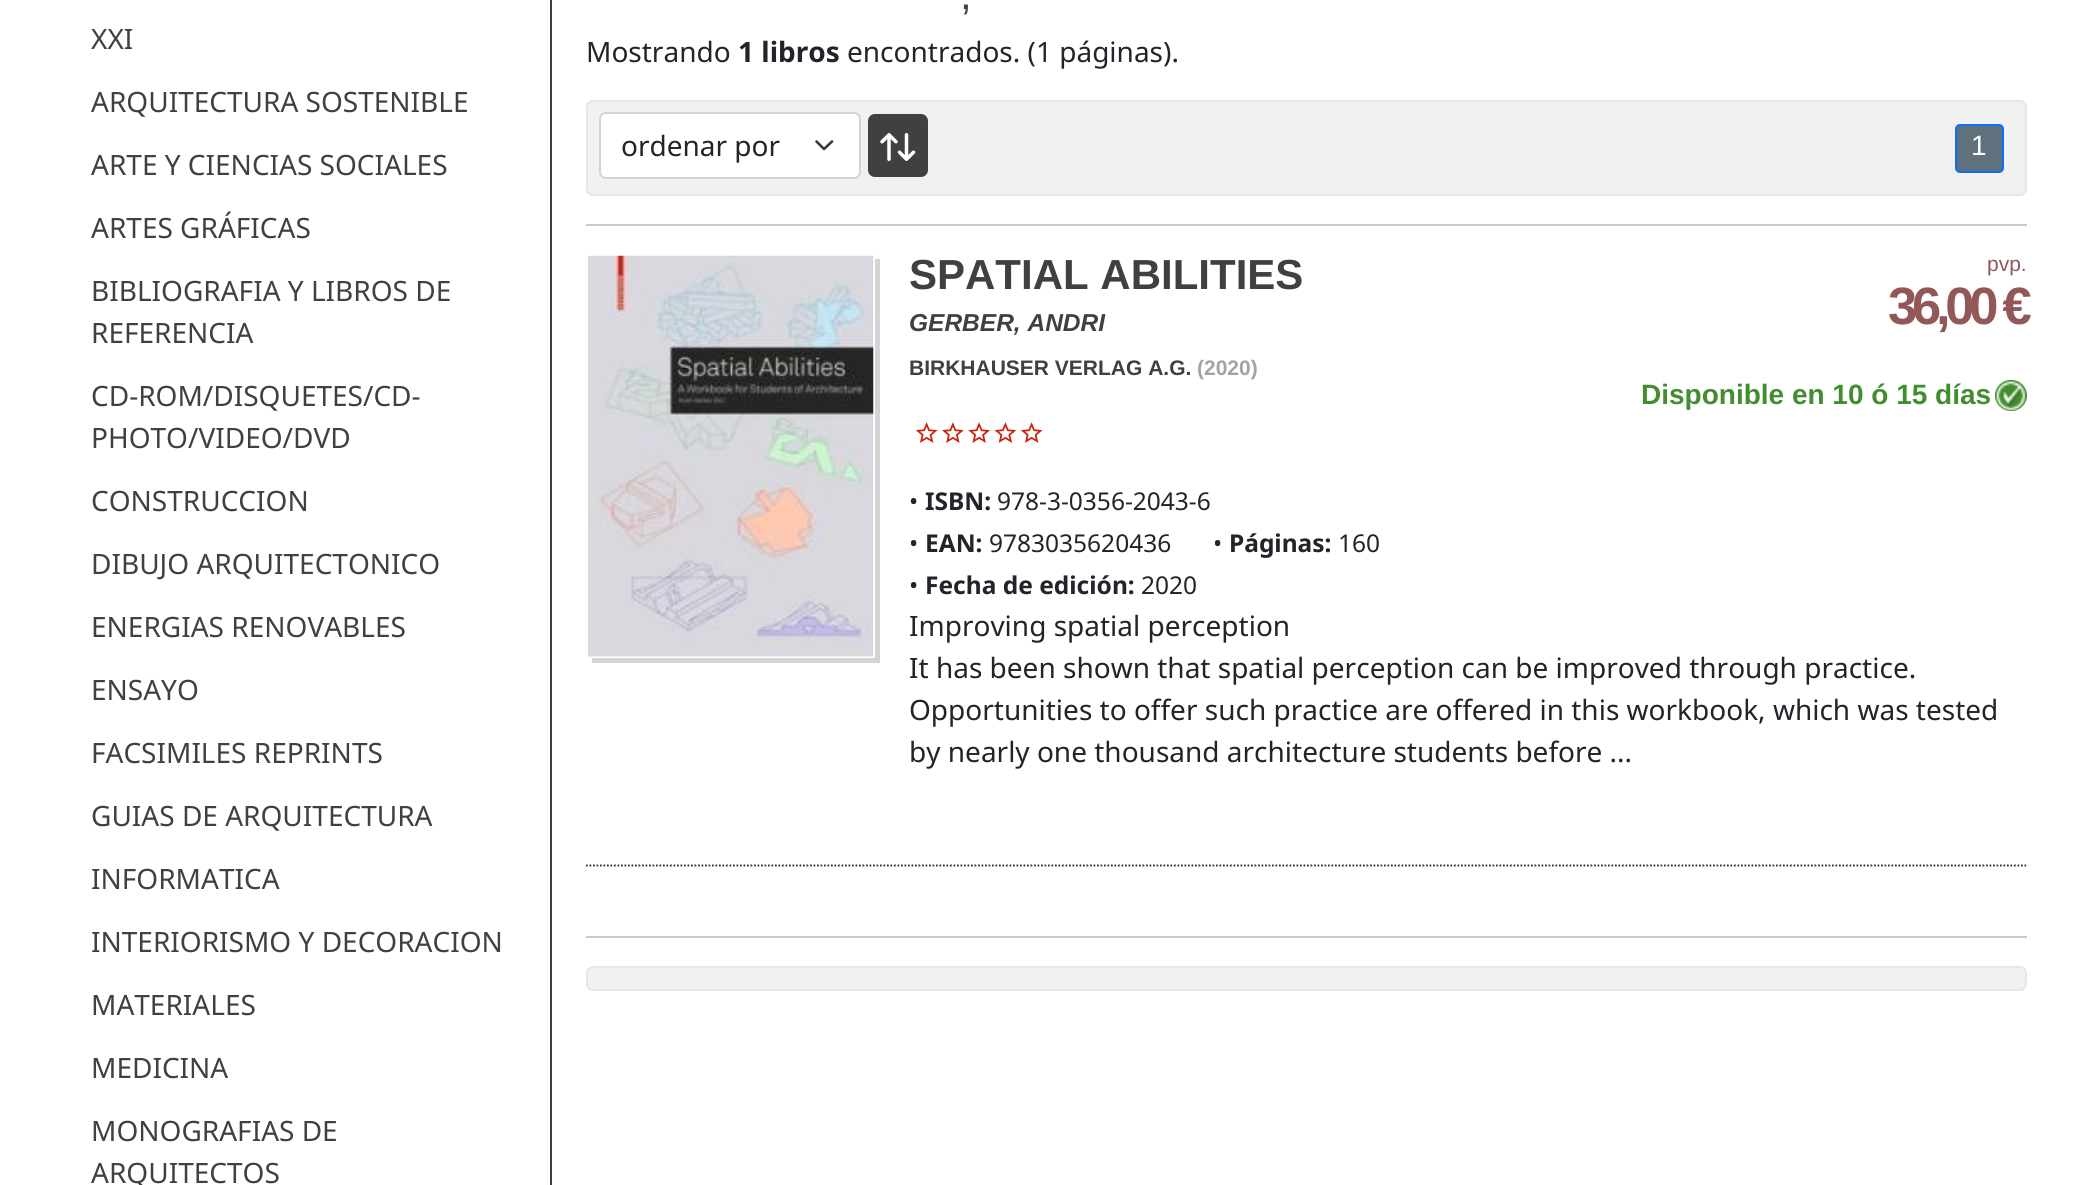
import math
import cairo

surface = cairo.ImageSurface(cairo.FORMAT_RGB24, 2099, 1185)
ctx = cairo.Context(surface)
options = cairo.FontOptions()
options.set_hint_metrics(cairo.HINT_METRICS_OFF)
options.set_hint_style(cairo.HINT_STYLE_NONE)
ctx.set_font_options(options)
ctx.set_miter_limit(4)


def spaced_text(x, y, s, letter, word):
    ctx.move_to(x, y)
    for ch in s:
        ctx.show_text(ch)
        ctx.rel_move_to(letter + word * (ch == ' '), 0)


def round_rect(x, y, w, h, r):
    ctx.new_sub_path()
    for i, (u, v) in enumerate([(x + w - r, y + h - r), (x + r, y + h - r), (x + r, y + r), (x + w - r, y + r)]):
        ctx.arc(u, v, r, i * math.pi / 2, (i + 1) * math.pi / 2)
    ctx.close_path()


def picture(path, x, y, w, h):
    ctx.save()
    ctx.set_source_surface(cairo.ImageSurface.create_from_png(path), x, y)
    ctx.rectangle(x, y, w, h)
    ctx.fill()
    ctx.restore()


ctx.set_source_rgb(1, 1, 1)
ctx.paint()
ctx.set_source_rgb(0.251, 0.251, 0.251)
ctx.rectangle(550, 0, 2, 1185)
ctx.fill()
ctx.select_font_face("Noto Sans")
ctx.set_font_size(28)
ctx.move_to(91, 49)
ctx.show_text("XXI")
ctx.move_to(91, 112)
ctx.show_text("ARQUITECTURA SOSTENIBLE")
ctx.move_to(91, 175)
ctx.show_text("ARTE Y CIENCIAS SOCIALES")
ctx.move_to(91, 238)
ctx.show_text("ARTES GRÁFICAS")
ctx.move_to(91, 301)
ctx.show_text("BIBLIOGRAFIA Y LIBROS DE")
ctx.move_to(91, 343)
ctx.show_text("REFERENCIA")
ctx.move_to(91, 406)
ctx.show_text("CD-ROM/DISQUETES/CD-")
ctx.move_to(91, 448)
ctx.show_text("PHOTO/VIDEO/DVD")
ctx.move_to(91, 511)
ctx.show_text("CONSTRUCCION")
ctx.move_to(91, 574)
ctx.show_text("DIBUJO ARQUITECTONICO")
ctx.move_to(91, 637)
ctx.show_text("ENERGIAS RENOVABLES")
ctx.move_to(91, 700)
ctx.show_text("ENSAYO")
ctx.move_to(91, 763)
ctx.show_text("FACSIMILES REPRINTS")
ctx.move_to(91, 826)
ctx.show_text("GUIAS DE ARQUITECTURA")
ctx.move_to(91, 889)
ctx.show_text("INFORMATICA")
ctx.move_to(91, 952)
ctx.show_text("INTERIORISMO Y DECORACION")
ctx.move_to(91, 1015)
ctx.show_text("MATERIALES")
ctx.move_to(91, 1078)
ctx.show_text("MEDICINA")
ctx.move_to(91, 1141)
ctx.show_text("MONOGRAFIAS DE")
ctx.move_to(91, 1183)
ctx.show_text("ARQUITECTOS")
ctx.select_font_face("Liberation Sans")
ctx.set_font_size(42)
ctx.move_to(960, 9)
ctx.show_text(",")
ctx.select_font_face("Noto Sans")
ctx.set_font_size(28)
ctx.set_source_rgb(0.129, 0.145, 0.161)
ctx.move_to(586, 62)
ctx.show_text("Mostrando")
ctx.select_font_face("Noto Sans", cairo.FONT_SLANT_NORMAL, cairo.FONT_WEIGHT_BOLD)
ctx.move_to(738, 62)
ctx.show_text("1 libros")
ctx.select_font_face("Noto Sans")
ctx.move_to(847, 62)
ctx.show_text("encontrados. (1 páginas).")
ctx.set_source_rgb(0.945, 0.945, 0.945)
round_rect(587, 101, 1439, 94, 6)
ctx.fill_preserve()
ctx.set_source_rgb(0.886, 0.91, 0.922)
ctx.stroke()
ctx.set_source_rgb(1, 1, 1)
round_rect(599, 112, 262, 67, 7)
ctx.fill()
ctx.new_path()
ctx.move_to(816.5, 141.5)
ctx.line_to(824, 149)
ctx.line_to(832, 141.5)
ctx.set_source_rgb(0.204, 0.227, 0.251)
ctx.set_line_width(2.6)
ctx.set_line_cap(cairo.LINE_CAP_ROUND)
ctx.set_line_join(cairo.LINE_JOIN_ROUND)
ctx.stroke()
round_rect(600, 113, 260, 65, 6)
ctx.set_source_rgb(0.808, 0.831, 0.855)
ctx.set_line_width(2)
ctx.set_line_cap(cairo.LINE_CAP_BUTT)
ctx.set_line_join(cairo.LINE_JOIN_MITER)
ctx.stroke()
ctx.set_source_rgb(0.129, 0.145, 0.161)
ctx.move_to(621, 156)
ctx.show_text("ordenar por")
ctx.set_source_rgb(0.251, 0.251, 0.251)
round_rect(869, 115, 58, 61, 6)
ctx.fill_preserve()
ctx.stroke()
picture("img1.png", 880, 133, 36, 28)
ctx.set_source_rgb(0.369, 0.443, 0.49)
round_rect(1956, 125, 47, 47, 4)
ctx.fill_preserve()
ctx.set_source_rgb(0.051, 0.431, 0.992)
ctx.stroke()
ctx.select_font_face("Liberation Sans")
ctx.set_source_rgb(1, 1, 1)
ctx.move_to(1971, 155)
ctx.show_text("1")
ctx.set_source_rgb(0.784, 0.788, 0.792)
ctx.rectangle(586, 224, 1441, 2)
ctx.fill()
ctx.new_path()
ctx.move_to(586, 865.5)
ctx.line_to(2026.5, 865.5)
ctx.set_source_rgb(0.129, 0.145, 0.161)
ctx.set_line_width(1.8)
ctx.set_dash([1.75, 1.75])
ctx.stroke()
ctx.set_source_rgb(0.831, 0.831, 0.831)
ctx.new_path()
ctx.move_to(592, 658)
ctx.line_to(592, 663)
ctx.line_to(880, 663)
ctx.line_to(880, 259)
ctx.line_to(875, 259)
ctx.line_to(875, 658)
ctx.close_path()
ctx.fill()
picture("img2.png", 588, 255, 286, 402)
ctx.select_font_face("Liberation Sans", cairo.FONT_SLANT_NORMAL, cairo.FONT_WEIGHT_BOLD)
ctx.set_font_size(42)
ctx.set_source_rgb(0.251, 0.251, 0.251)
ctx.move_to(909, 289)
ctx.show_text("SPATIAL ABILITIES")
ctx.select_font_face("Liberation Sans", cairo.FONT_SLANT_ITALIC, cairo.FONT_WEIGHT_BOLD)
ctx.set_font_size(24.5)
ctx.move_to(909, 331)
ctx.show_text("GERBER, ANDRI")
ctx.select_font_face("Liberation Sans", cairo.FONT_SLANT_NORMAL, cairo.FONT_WEIGHT_BOLD)
ctx.set_font_size(21)
ctx.move_to(909, 375)
ctx.show_text("BIRKHAUSER VERLAG A.G.")
ctx.set_source_rgb(0.639, 0.639, 0.639)
ctx.move_to(1197, 375)
ctx.show_text("(2020)")
picture("img3.png", 915, 422, 128, 21)
ctx.select_font_face("Noto Sans")
ctx.set_font_size(24.5)
ctx.set_source_rgb(0.129, 0.145, 0.161)
ctx.move_to(909, 510)
ctx.show_text("•")
ctx.select_font_face("Noto Sans", cairo.FONT_SLANT_NORMAL, cairo.FONT_WEIGHT_BOLD)
ctx.move_to(925, 510)
ctx.show_text("ISBN:")
ctx.select_font_face("Noto Sans")
ctx.move_to(997, 510)
ctx.show_text("978-3-0356-2043-6")
ctx.move_to(909, 552)
ctx.show_text("•")
ctx.select_font_face("Noto Sans", cairo.FONT_SLANT_NORMAL, cairo.FONT_WEIGHT_BOLD)
ctx.move_to(925, 552)
ctx.show_text("EAN:")
ctx.select_font_face("Noto Sans")
ctx.move_to(989, 552)
ctx.show_text("9783035620436")
ctx.move_to(1213, 552)
ctx.show_text("•")
ctx.select_font_face("Noto Sans", cairo.FONT_SLANT_NORMAL, cairo.FONT_WEIGHT_BOLD)
ctx.move_to(1229, 552)
ctx.show_text("Páginas:")
ctx.select_font_face("Noto Sans")
ctx.move_to(1338, 552)
ctx.show_text("160")
ctx.move_to(909, 594)
ctx.show_text("•")
ctx.select_font_face("Noto Sans", cairo.FONT_SLANT_NORMAL, cairo.FONT_WEIGHT_BOLD)
ctx.move_to(925, 594)
ctx.show_text("Fecha de edición:")
ctx.select_font_face("Noto Sans")
ctx.move_to(1141, 594)
ctx.show_text("2020")
ctx.select_font_face("Liberation Sans")
ctx.set_font_size(21)
ctx.set_source_rgb(0.569, 0.345, 0.341)
ctx.move_to(1987, 271)
ctx.show_text("pvp.")
ctx.select_font_face("Liberation Sans", cairo.FONT_SLANT_NORMAL, cairo.FONT_WEIGHT_BOLD)
ctx.set_font_size(52.5)
spaced_text(1888, 324, "36,00 €", -5.25, 0)
ctx.set_font_size(28)
ctx.set_source_rgb(0.263, 0.549, 0.184)
ctx.move_to(1641, 404)
ctx.show_text("Disponible en 10 ó 15 días")
round_rect(1995, 380, 32, 31, 15.5)
ctx.fill()
picture("img4.png", 1996, 381, 30, 30)
ctx.select_font_face("Noto Sans")
ctx.set_source_rgb(0.129, 0.145, 0.161)
ctx.move_to(909, 636)
ctx.show_text("Improving spatial perception")
ctx.move_to(909, 678)
ctx.show_text("It has been shown that spatial perception can be improved through practice.")
ctx.move_to(909, 720)
ctx.show_text("Opportunities to offer such practice are offered in this workbook, which was tested")
ctx.move_to(909, 762)
ctx.show_text("by nearly one thousand architecture students before ...")
ctx.set_source_rgb(0.784, 0.788, 0.792)
ctx.rectangle(586, 936, 1441, 2)
ctx.fill()
ctx.set_source_rgb(0.945, 0.945, 0.945)
round_rect(587, 967, 1439, 23, 6)
ctx.fill_preserve()
ctx.set_source_rgb(0.886, 0.91, 0.922)
ctx.set_line_width(2)
ctx.set_dash([])
ctx.stroke()
surface.write_to_png("page.png")
